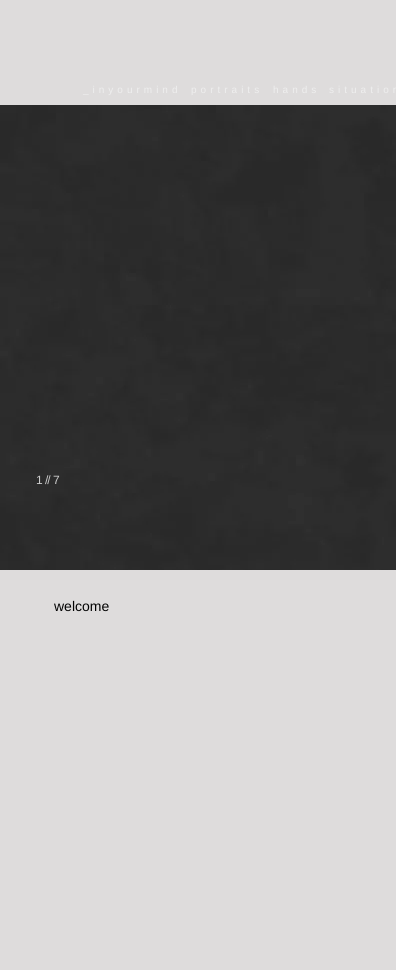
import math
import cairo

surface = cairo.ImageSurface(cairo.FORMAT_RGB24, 396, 970)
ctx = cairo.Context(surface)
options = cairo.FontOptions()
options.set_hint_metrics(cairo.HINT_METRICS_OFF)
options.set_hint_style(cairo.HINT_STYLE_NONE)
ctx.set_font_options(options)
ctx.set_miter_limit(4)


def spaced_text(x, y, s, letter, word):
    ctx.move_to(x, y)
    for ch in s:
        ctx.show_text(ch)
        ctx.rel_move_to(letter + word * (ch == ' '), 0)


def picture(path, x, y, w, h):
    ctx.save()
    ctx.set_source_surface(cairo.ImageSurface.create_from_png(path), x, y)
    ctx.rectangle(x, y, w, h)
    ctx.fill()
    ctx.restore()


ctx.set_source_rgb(0.871, 0.863, 0.863)
ctx.paint()
ctx.select_font_face("Liberation Sans")
ctx.set_font_size(10)
ctx.set_source_rgb(0.933, 0.933, 0.933)
spaced_text(83, 93, "_inyourmind", 4, 0)
spaced_text(191, 93, "portraits", 4, 0)
spaced_text(273, 93, "hands", 4, 0)
spaced_text(329, 93, "situation", 4, 0)
picture("img1.png", 0, 105, 396, 465)
ctx.set_font_size(12)
ctx.set_source_rgb(0.8, 0.8, 0.8)
ctx.move_to(36, 484)
ctx.show_text("1")
spaced_text(45, 484, "//", -1, 0)
ctx.move_to(53, 484)
ctx.show_text("7")
ctx.set_font_size(14)
ctx.set_source_rgb(0.012, 0.012, 0.012)
ctx.move_to(54, 611)
ctx.show_text("welcome")
surface.write_to_png("page.png")
